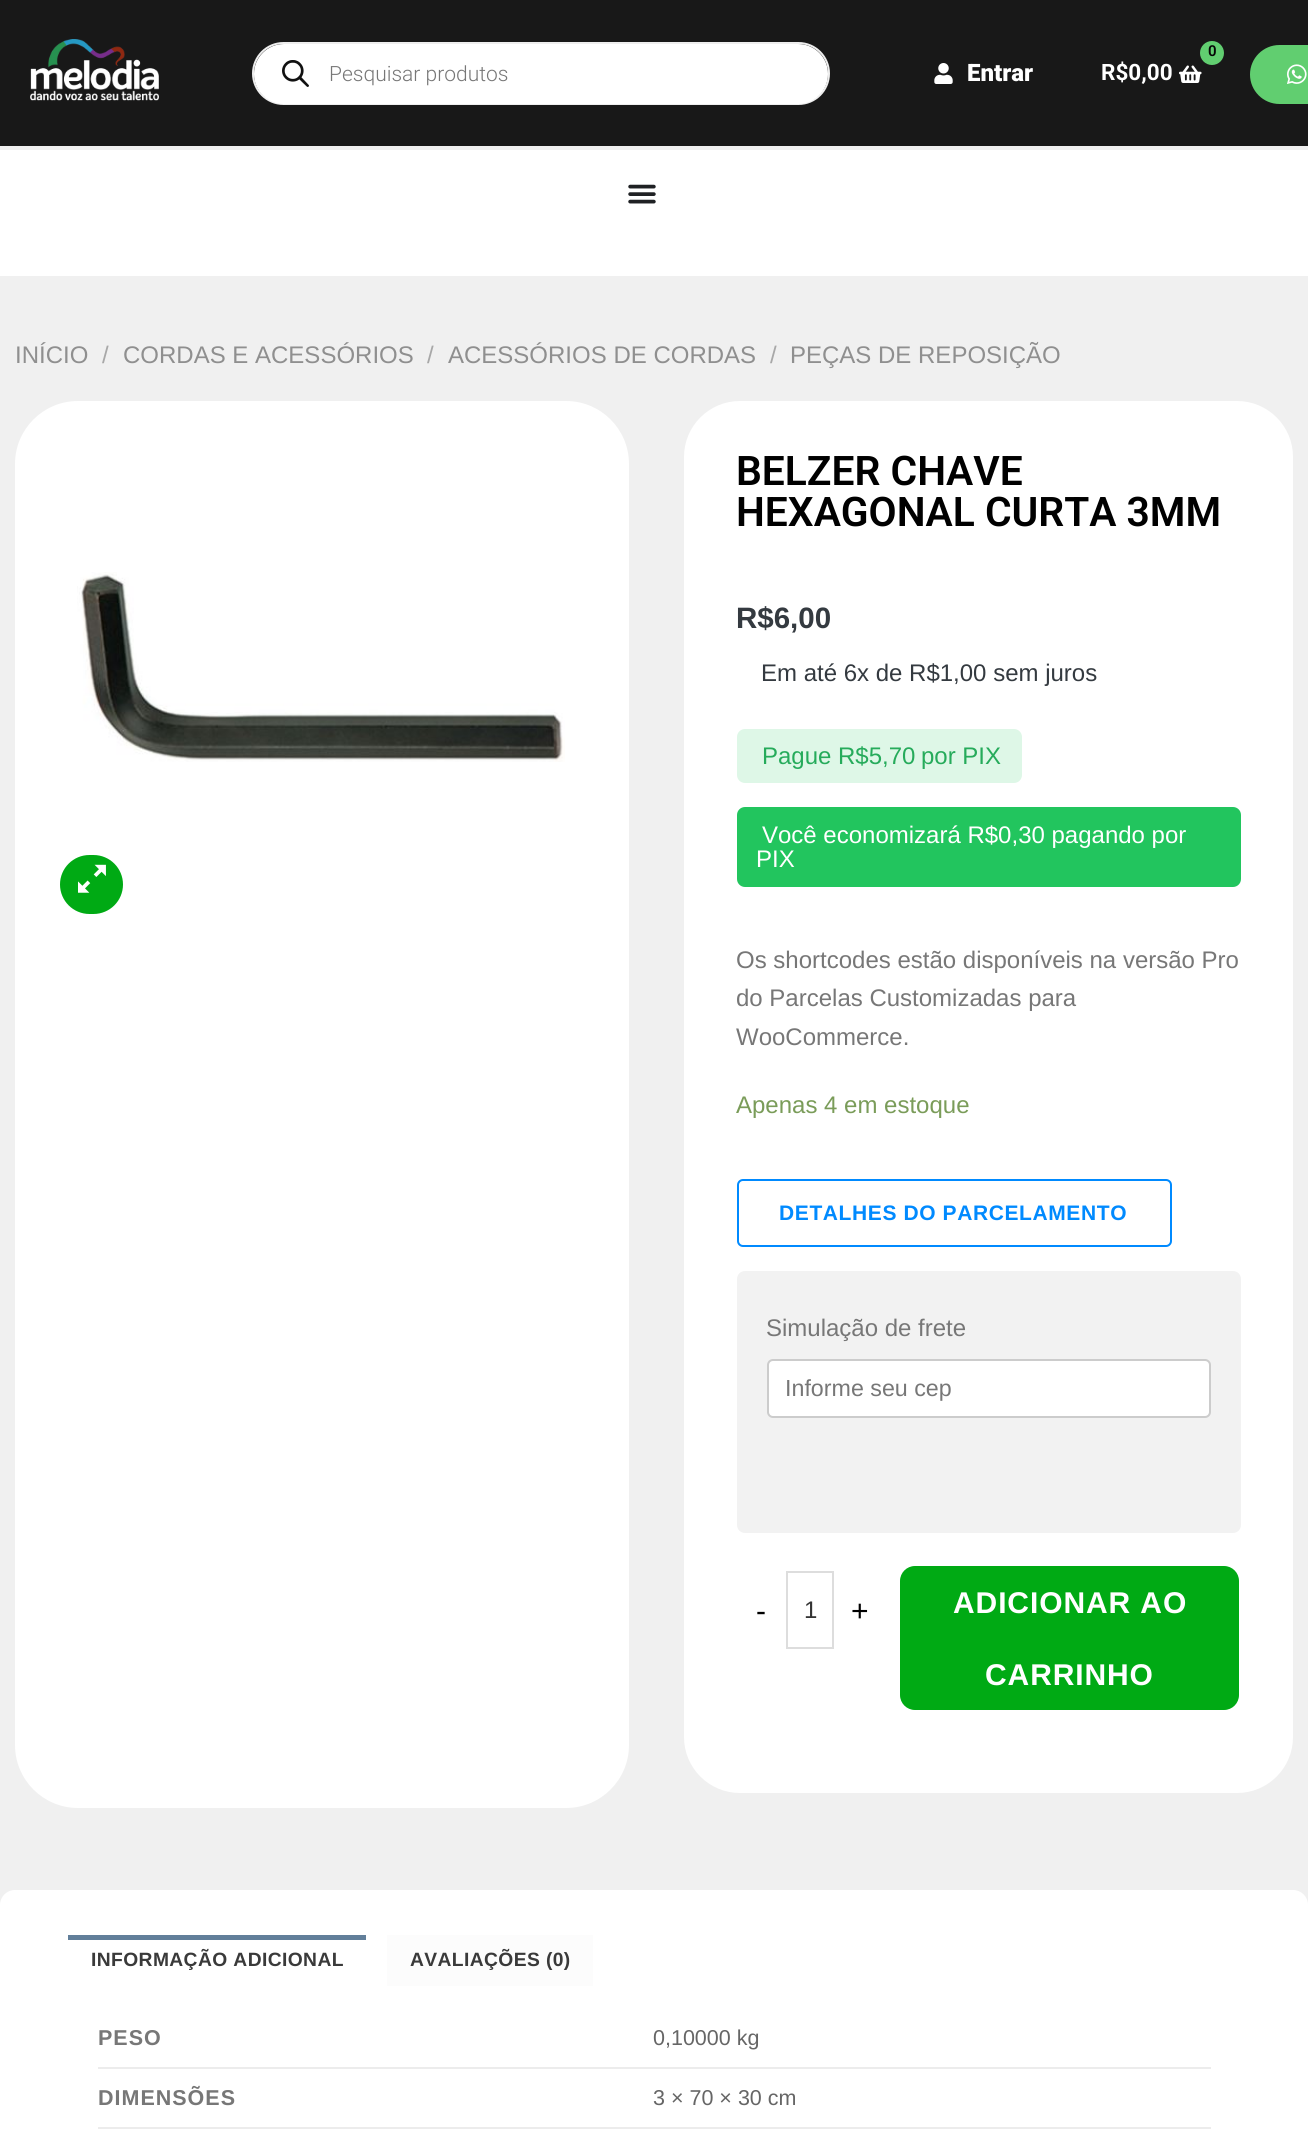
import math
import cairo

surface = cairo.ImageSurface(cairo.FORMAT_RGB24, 1308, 2156)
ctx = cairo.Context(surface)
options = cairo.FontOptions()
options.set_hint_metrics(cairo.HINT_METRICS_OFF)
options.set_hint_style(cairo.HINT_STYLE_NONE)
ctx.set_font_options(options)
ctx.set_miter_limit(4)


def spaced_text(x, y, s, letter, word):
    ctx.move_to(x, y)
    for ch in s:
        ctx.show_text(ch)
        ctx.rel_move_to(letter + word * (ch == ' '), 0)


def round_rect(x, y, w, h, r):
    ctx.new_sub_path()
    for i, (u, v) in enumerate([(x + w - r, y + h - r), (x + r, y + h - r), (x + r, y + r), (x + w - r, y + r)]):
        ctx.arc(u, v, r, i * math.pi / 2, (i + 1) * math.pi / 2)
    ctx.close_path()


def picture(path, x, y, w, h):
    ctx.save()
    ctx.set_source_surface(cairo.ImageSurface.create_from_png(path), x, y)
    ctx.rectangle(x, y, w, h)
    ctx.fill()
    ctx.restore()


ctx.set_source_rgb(0.941, 0.941, 0.941)
ctx.paint()
ctx.set_source_rgb(0.094, 0.094, 0.094)
ctx.rectangle(0, 0, 1308, 146)
ctx.fill()
picture("img1.png", 30, 39, 129, 62)
round_rect(253, 43, 576, 61, 30.5)
ctx.set_source_rgb(0.933, 0.933, 0.933)
ctx.stroke()
ctx.set_source_rgb(1, 1, 1)
round_rect(254, 44, 574, 60, 30)
ctx.fill()
picture("img2.png", 282, 60, 27, 27)
ctx.select_font_face("Roboto Light")
ctx.set_font_size(21)
ctx.set_source_rgb(0.467, 0.467, 0.467)
ctx.move_to(329, 81)
ctx.show_text("Pesquisar produtos")
picture("img3.png", 934, 63, 19, 21)
ctx.select_font_face("Roboto Black")
ctx.set_font_size(24)
ctx.set_source_rgb(1, 1, 1)
ctx.move_to(967, 81)
ctx.show_text("Entrar")
ctx.set_source_rgb(0.38, 0.808, 0.439)
ctx.new_path()
ctx.arc(1212, 53, 12, 0, 2 * math.pi)
ctx.fill()
ctx.select_font_face("Roboto SemiBold")
ctx.set_font_size(15)
ctx.set_source_rgb(0.027, 0.027, 0.027)
ctx.move_to(1208, 56)
ctx.show_text("0")
picture("img4.png", 1179, 65, 23, 18)
ctx.select_font_face("Roboto", cairo.FONT_SLANT_NORMAL, cairo.FONT_WEIGHT_BOLD)
ctx.set_font_size(22.5)
ctx.set_source_rgb(1, 1, 1)
ctx.move_to(1101, 80)
ctx.show_text("R$0,00")
ctx.set_source_rgb(0.38, 0.808, 0.439)
round_rect(1250, 45, 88, 59, 29.5)
ctx.fill()
picture("img5.png", 1287, 64, 20, 20)
ctx.set_source_rgb(1, 1, 1)
ctx.rectangle(0, 150, 1308, 126)
ctx.fill()
picture("img6.png", 628, 184, 28, 20)
ctx.select_font_face("Liberation Sans")
ctx.set_font_size(24)
ctx.set_source_rgb(0.561, 0.561, 0.561)
ctx.move_to(15, 363)
ctx.show_text("INÍCIO")
ctx.set_source_rgb(0.659, 0.659, 0.659)
ctx.move_to(102, 363)
ctx.show_text("/")
ctx.set_source_rgb(0.561, 0.561, 0.561)
ctx.move_to(123, 363)
ctx.show_text("CORDAS E ACESSÓRIOS")
ctx.set_source_rgb(0.659, 0.659, 0.659)
ctx.move_to(427, 363)
ctx.show_text("/")
ctx.set_source_rgb(0.561, 0.561, 0.561)
ctx.move_to(448, 363)
ctx.show_text("ACESSÓRIOS DE CORDAS")
ctx.set_source_rgb(0.659, 0.659, 0.659)
ctx.move_to(770, 363)
ctx.show_text("/")
ctx.set_source_rgb(0.561, 0.561, 0.561)
ctx.move_to(790, 363)
ctx.show_text("PEÇAS DE REPOSIÇÃO")
ctx.set_source_rgb(1, 1, 1)
round_rect(15, 401, 614, 1407, 63)
ctx.fill()
picture("img7.png", 77, 572, 488, 190)
ctx.set_source_rgb(0, 0.667, 0.082)
round_rect(60, 855, 63, 59, 29.5)
ctx.fill()
picture("img8.png", 78, 864, 28, 29)
ctx.set_source_rgb(1, 1, 1)
round_rect(684, 401, 609, 1392, 56)
ctx.fill()
ctx.select_font_face("Roboto SemiBold")
ctx.set_font_size(40.75)
ctx.set_source_rgb(0, 0, 0)
ctx.move_to(736, 485)
ctx.show_text("BELZER CHAVE")
ctx.move_to(736, 526)
ctx.show_text("HEXAGONAL CURTA 3MM")
ctx.select_font_face("Liberation Sans", cairo.FONT_SLANT_NORMAL, cairo.FONT_WEIGHT_BOLD)
ctx.set_font_size(29.5)
ctx.set_source_rgb(0.204, 0.227, 0.251)
ctx.move_to(736, 628)
ctx.show_text("R$6,00")
ctx.select_font_face("Liberation Sans")
ctx.set_font_size(24)
ctx.move_to(761, 681)
ctx.show_text("Em até 6x de R$1,00 sem juros")
ctx.set_source_rgb(0.871, 0.965, 0.906)
round_rect(737, 729, 285, 54, 8)
ctx.fill()
ctx.set_source_rgb(0.149, 0.671, 0.357)
ctx.move_to(762, 764)
ctx.show_text("Pague")
ctx.move_to(838, 764)
ctx.show_text("R$5,70")
ctx.move_to(921, 764)
ctx.show_text("por PIX")
ctx.set_source_rgb(0.133, 0.773, 0.369)
round_rect(737, 807, 504, 80, 8)
ctx.fill()
ctx.set_source_rgb(1, 1, 1)
ctx.move_to(762, 843)
ctx.show_text("Você economizará R$0,30 pagando por")
ctx.move_to(756, 867)
ctx.show_text("PIX")
ctx.set_source_rgb(0.467, 0.467, 0.467)
ctx.move_to(736, 968)
ctx.show_text("Os shortcodes estão disponíveis na versão Pro")
ctx.move_to(736, 1006)
ctx.show_text("do Parcelas Customizadas para")
ctx.move_to(736, 1045)
ctx.show_text("WooCommerce.")
ctx.set_source_rgb(0.478, 0.612, 0.349)
ctx.move_to(736, 1113)
ctx.show_text("Apenas 4 em estoque")
round_rect(738, 1180, 433, 66, 5)
ctx.set_source_rgb(0, 0.541, 1)
ctx.stroke()
ctx.select_font_face("Liberation Sans", cairo.FONT_SLANT_NORMAL, cairo.FONT_WEIGHT_BOLD)
ctx.set_font_size(21)
spaced_text(779, 1220, "DETALHES DO PARCELAMENTO", 0.6, 0)
ctx.set_source_rgb(0.949, 0.949, 0.949)
round_rect(737, 1271, 504, 262, 8)
ctx.fill()
ctx.select_font_face("Liberation Sans")
ctx.set_font_size(24)
ctx.set_source_rgb(0.467, 0.467, 0.467)
ctx.move_to(766, 1336)
ctx.show_text("Simulação de frete")
ctx.set_source_rgb(1, 1, 1)
round_rect(768, 1360, 442, 57, 5)
ctx.fill_preserve()
ctx.set_source_rgb(0.8, 0.8, 0.8)
ctx.stroke()
ctx.set_font_size(23.25)
ctx.set_source_rgb(0.467, 0.467, 0.467)
ctx.move_to(785, 1396)
ctx.show_text("Informe seu cep")
ctx.set_font_size(30)
ctx.set_source_rgb(0, 0, 0)
spaced_text(756, 1621, "-", 0.9, 0)
ctx.rectangle(787, 1572, 46, 76)
ctx.set_source_rgb(0.867, 0.867, 0.867)
ctx.stroke()
ctx.set_font_size(24)
ctx.set_source_rgb(0.2, 0.2, 0.2)
ctx.move_to(804, 1618)
ctx.show_text("1")
ctx.set_font_size(30)
ctx.set_source_rgb(0, 0, 0)
spaced_text(851, 1621, "+", 0.9, 0)
ctx.set_source_rgb(0, 0.667, 0.082)
round_rect(900, 1566, 339, 144, 15)
ctx.fill()
ctx.select_font_face("Liberation Sans", cairo.FONT_SLANT_NORMAL, cairo.FONT_WEIGHT_BOLD)
ctx.set_source_rgb(1, 1, 1)
spaced_text(953, 1613, "ADICIONAR AO", 0.9, 0)
spaced_text(985, 1685, "CARRINHO", 0.9, 0)
round_rect(0, 1890, 1308, 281, 15)
ctx.fill()
ctx.set_source_rgb(0.384, 0.498, 0.604)
ctx.rectangle(68, 1935, 298, 5)
ctx.fill()
ctx.set_font_size(19.25)
ctx.set_source_rgb(0.227, 0.227, 0.227)
spaced_text(91, 1966, "INFORMAÇÃO ADICIONAL", 0.4, 0)
ctx.set_source_rgb(0.988, 0.988, 0.988)
ctx.rectangle(387, 1935, 206, 51)
ctx.fill()
ctx.set_source_rgb(0.227, 0.227, 0.227)
spaced_text(410, 1966, "AVALIAÇÕES (0)", 0.4, 0)
ctx.set_source_rgb(0.925, 0.925, 0.925)
ctx.rectangle(98, 2067, 1113, 2)
ctx.fill()
ctx.set_font_size(21.5)
ctx.set_source_rgb(0.467, 0.467, 0.467)
spaced_text(98, 2045, "PESO", 1, 0)
ctx.select_font_face("Liberation Sans")
ctx.set_source_rgb(0.4, 0.4, 0.4)
ctx.move_to(653, 2045)
ctx.show_text("0,10000 kg")
ctx.set_source_rgb(0.925, 0.925, 0.925)
ctx.rectangle(98, 2127, 1113, 2)
ctx.fill()
ctx.select_font_face("Liberation Sans", cairo.FONT_SLANT_NORMAL, cairo.FONT_WEIGHT_BOLD)
ctx.set_source_rgb(0.467, 0.467, 0.467)
spaced_text(98, 2105, "DIMENSÕES", 1, 0)
ctx.select_font_face("Liberation Sans")
ctx.set_source_rgb(0.4, 0.4, 0.4)
ctx.move_to(653, 2105)
ctx.show_text("3 × 70 × 30 cm")
surface.write_to_png("page.png")
